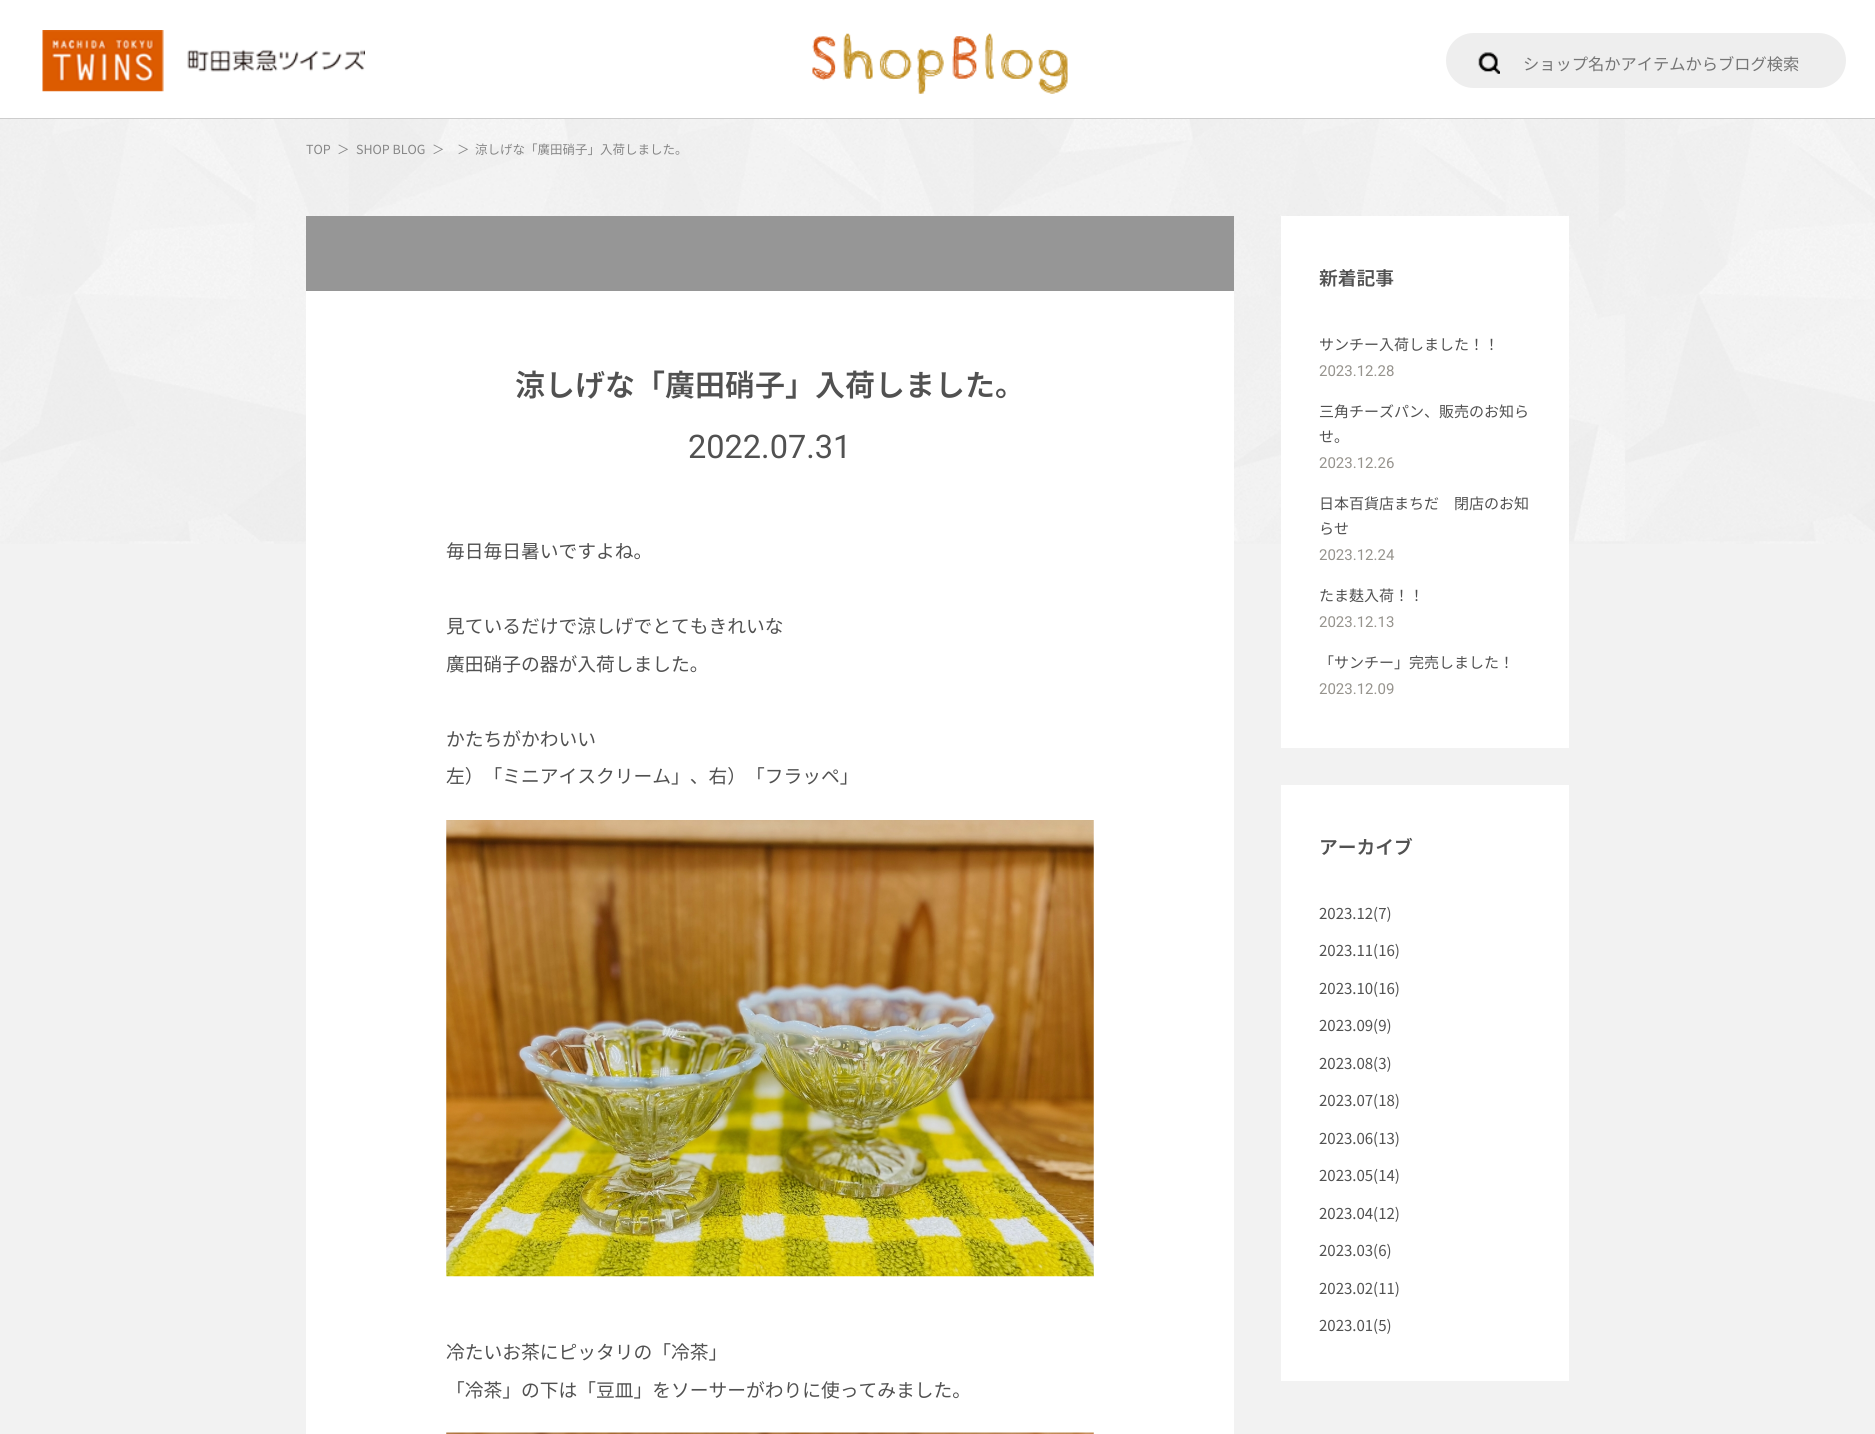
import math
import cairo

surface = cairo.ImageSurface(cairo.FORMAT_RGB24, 1875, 1434)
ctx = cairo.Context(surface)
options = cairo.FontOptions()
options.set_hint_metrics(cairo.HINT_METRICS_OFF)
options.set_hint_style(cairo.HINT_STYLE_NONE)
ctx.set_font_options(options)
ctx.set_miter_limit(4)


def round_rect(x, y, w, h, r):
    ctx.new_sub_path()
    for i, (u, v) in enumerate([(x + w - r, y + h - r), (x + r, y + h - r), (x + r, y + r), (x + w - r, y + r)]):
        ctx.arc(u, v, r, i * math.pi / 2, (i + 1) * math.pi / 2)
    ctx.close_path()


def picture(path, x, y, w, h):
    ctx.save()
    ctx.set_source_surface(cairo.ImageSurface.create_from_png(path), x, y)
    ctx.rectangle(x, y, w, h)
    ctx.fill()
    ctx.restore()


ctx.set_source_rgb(0.949, 0.949, 0.949)
ctx.paint()
ctx.set_source_rgb(1, 1, 1)
ctx.rectangle(0, 0, 1875, 118)
ctx.fill()
ctx.set_source_rgb(0.804, 0.804, 0.804)
ctx.rectangle(0, 118, 1875, 1)
ctx.fill()
picture("img1.png", 42, 30, 323, 62)
picture("img2.png", 812, 33, 256, 61)
ctx.set_source_rgb(0.933, 0.933, 0.933)
round_rect(1446, 33, 400, 55, 27.5)
ctx.fill()
picture("img3.png", 1478, 52, 22, 22)
ctx.select_font_face("Noto Sans JP")
ctx.set_font_size(16.25)
ctx.set_source_rgb(0.459, 0.459, 0.459)
ctx.move_to(1523, 70)
ctx.show_text("ショップ名かアイテムからブログ検索")
picture("img4.png", 0, 119, 1875, 425)
ctx.set_font_size(12.5)
ctx.set_source_rgb(0.525, 0.525, 0.525)
ctx.move_to(306, 154)
ctx.show_text("TOP")
ctx.move_to(337, 154)
ctx.show_text("＞")
ctx.move_to(356, 154)
ctx.show_text("SHOP BLOG")
ctx.move_to(432, 154)
ctx.show_text("＞")
ctx.move_to(457, 154)
ctx.show_text("＞")
ctx.move_to(475, 154)
ctx.show_text("涼しげな「廣田硝子」入荷しました。")
ctx.set_source_rgb(1, 1, 1)
ctx.rectangle(306, 291, 928, 1143)
ctx.fill()
ctx.set_source_rgb(0.588, 0.588, 0.588)
ctx.rectangle(306, 216, 928, 75)
ctx.fill()
ctx.select_font_face("Noto Sans JP SemiBold")
ctx.set_font_size(30)
ctx.set_source_rgb(0.318, 0.318, 0.318)
ctx.move_to(515, 396)
ctx.show_text("涼しげな「廣田硝子」入荷しました。")
ctx.select_font_face("Roboto")
ctx.set_font_size(32.5)
ctx.move_to(688, 458)
ctx.show_text("2022.07.31")
ctx.select_font_face("Noto Sans JP")
ctx.set_font_size(18.75)
ctx.move_to(446, 558)
ctx.show_text("毎日毎日暑いですよね。")
ctx.move_to(446, 633)
ctx.show_text("見ているだけで涼しげでとてもきれいな")
ctx.move_to(446, 671)
ctx.show_text("廣田硝子の器が入荷しました。")
ctx.move_to(446, 746)
ctx.show_text("かたちがかわいい")
ctx.move_to(446, 783)
ctx.show_text("左）「ミニアイスクリーム」、右）「フラッペ」")
picture("img5.png", 446, 820, 648, 457)
ctx.move_to(446, 1359)
ctx.show_text("冷たいお茶にピッタリの「冷茶」")
ctx.move_to(446, 1397)
ctx.show_text("「冷茶」の下は「豆皿」をソーサーがわりに使ってみました。")
picture("img6.png", 446, 1432, 648, 2)
ctx.set_source_rgb(1, 1, 1)
ctx.rectangle(1281, 216, 288, 532)
ctx.fill()
ctx.select_font_face("Noto Sans JP SemiBold")
ctx.set_source_rgb(0.318, 0.318, 0.318)
ctx.move_to(1319, 285)
ctx.show_text("新着記事")
ctx.select_font_face("Noto Sans JP")
ctx.set_font_size(15)
ctx.move_to(1319, 350)
ctx.show_text("サンチー入荷しました！！")
ctx.select_font_face("Roboto")
ctx.set_source_rgb(0.588, 0.576, 0.553)
ctx.move_to(1319, 376)
ctx.show_text("2023.12.28")
ctx.select_font_face("Noto Sans JP")
ctx.set_source_rgb(0.318, 0.318, 0.318)
ctx.move_to(1319, 417)
ctx.show_text("三角チーズパン、販売のお知ら")
ctx.move_to(1319, 442)
ctx.show_text("せ。")
ctx.select_font_face("Roboto")
ctx.set_source_rgb(0.588, 0.576, 0.553)
ctx.move_to(1319, 468)
ctx.show_text("2023.12.26")
ctx.select_font_face("Noto Sans JP")
ctx.set_source_rgb(0.318, 0.318, 0.318)
ctx.move_to(1319, 509)
ctx.show_text("日本百貨店まちだ　閉店のお知")
ctx.move_to(1319, 534)
ctx.show_text("らせ")
ctx.select_font_face("Roboto")
ctx.set_source_rgb(0.588, 0.576, 0.553)
ctx.move_to(1319, 560)
ctx.show_text("2023.12.24")
ctx.select_font_face("Noto Sans JP")
ctx.set_source_rgb(0.318, 0.318, 0.318)
ctx.move_to(1319, 601)
ctx.show_text("たま麸入荷！！")
ctx.select_font_face("Roboto")
ctx.set_source_rgb(0.588, 0.576, 0.553)
ctx.move_to(1319, 627)
ctx.show_text("2023.12.13")
ctx.select_font_face("Noto Sans JP")
ctx.set_source_rgb(0.318, 0.318, 0.318)
ctx.move_to(1319, 668)
ctx.show_text("「サンチー」完売しました！")
ctx.select_font_face("Roboto")
ctx.set_source_rgb(0.588, 0.576, 0.553)
ctx.move_to(1319, 694)
ctx.show_text("2023.12.09")
ctx.set_source_rgb(1, 1, 1)
ctx.rectangle(1281, 785, 288, 596)
ctx.fill()
ctx.select_font_face("Noto Sans JP SemiBold")
ctx.set_font_size(18.75)
ctx.set_source_rgb(0.318, 0.318, 0.318)
ctx.move_to(1319, 854)
ctx.show_text("アーカイブ")
ctx.select_font_face("Noto Sans JP")
ctx.set_font_size(15)
ctx.move_to(1319, 919)
ctx.show_text("2023.12(7)")
ctx.move_to(1319, 956)
ctx.show_text("2023.11(16)")
ctx.move_to(1319, 994)
ctx.show_text("2023.10(16)")
ctx.move_to(1319, 1031)
ctx.show_text("2023.09(9)")
ctx.move_to(1319, 1069)
ctx.show_text("2023.08(3)")
ctx.move_to(1319, 1106)
ctx.show_text("2023.07(18)")
ctx.move_to(1319, 1144)
ctx.show_text("2023.06(13)")
ctx.move_to(1319, 1181)
ctx.show_text("2023.05(14)")
ctx.move_to(1319, 1219)
ctx.show_text("2023.04(12)")
ctx.move_to(1319, 1256)
ctx.show_text("2023.03(6)")
ctx.move_to(1319, 1294)
ctx.show_text("2023.02(11)")
ctx.move_to(1319, 1331)
ctx.show_text("2023.01(5)")
surface.write_to_png("page.png")
